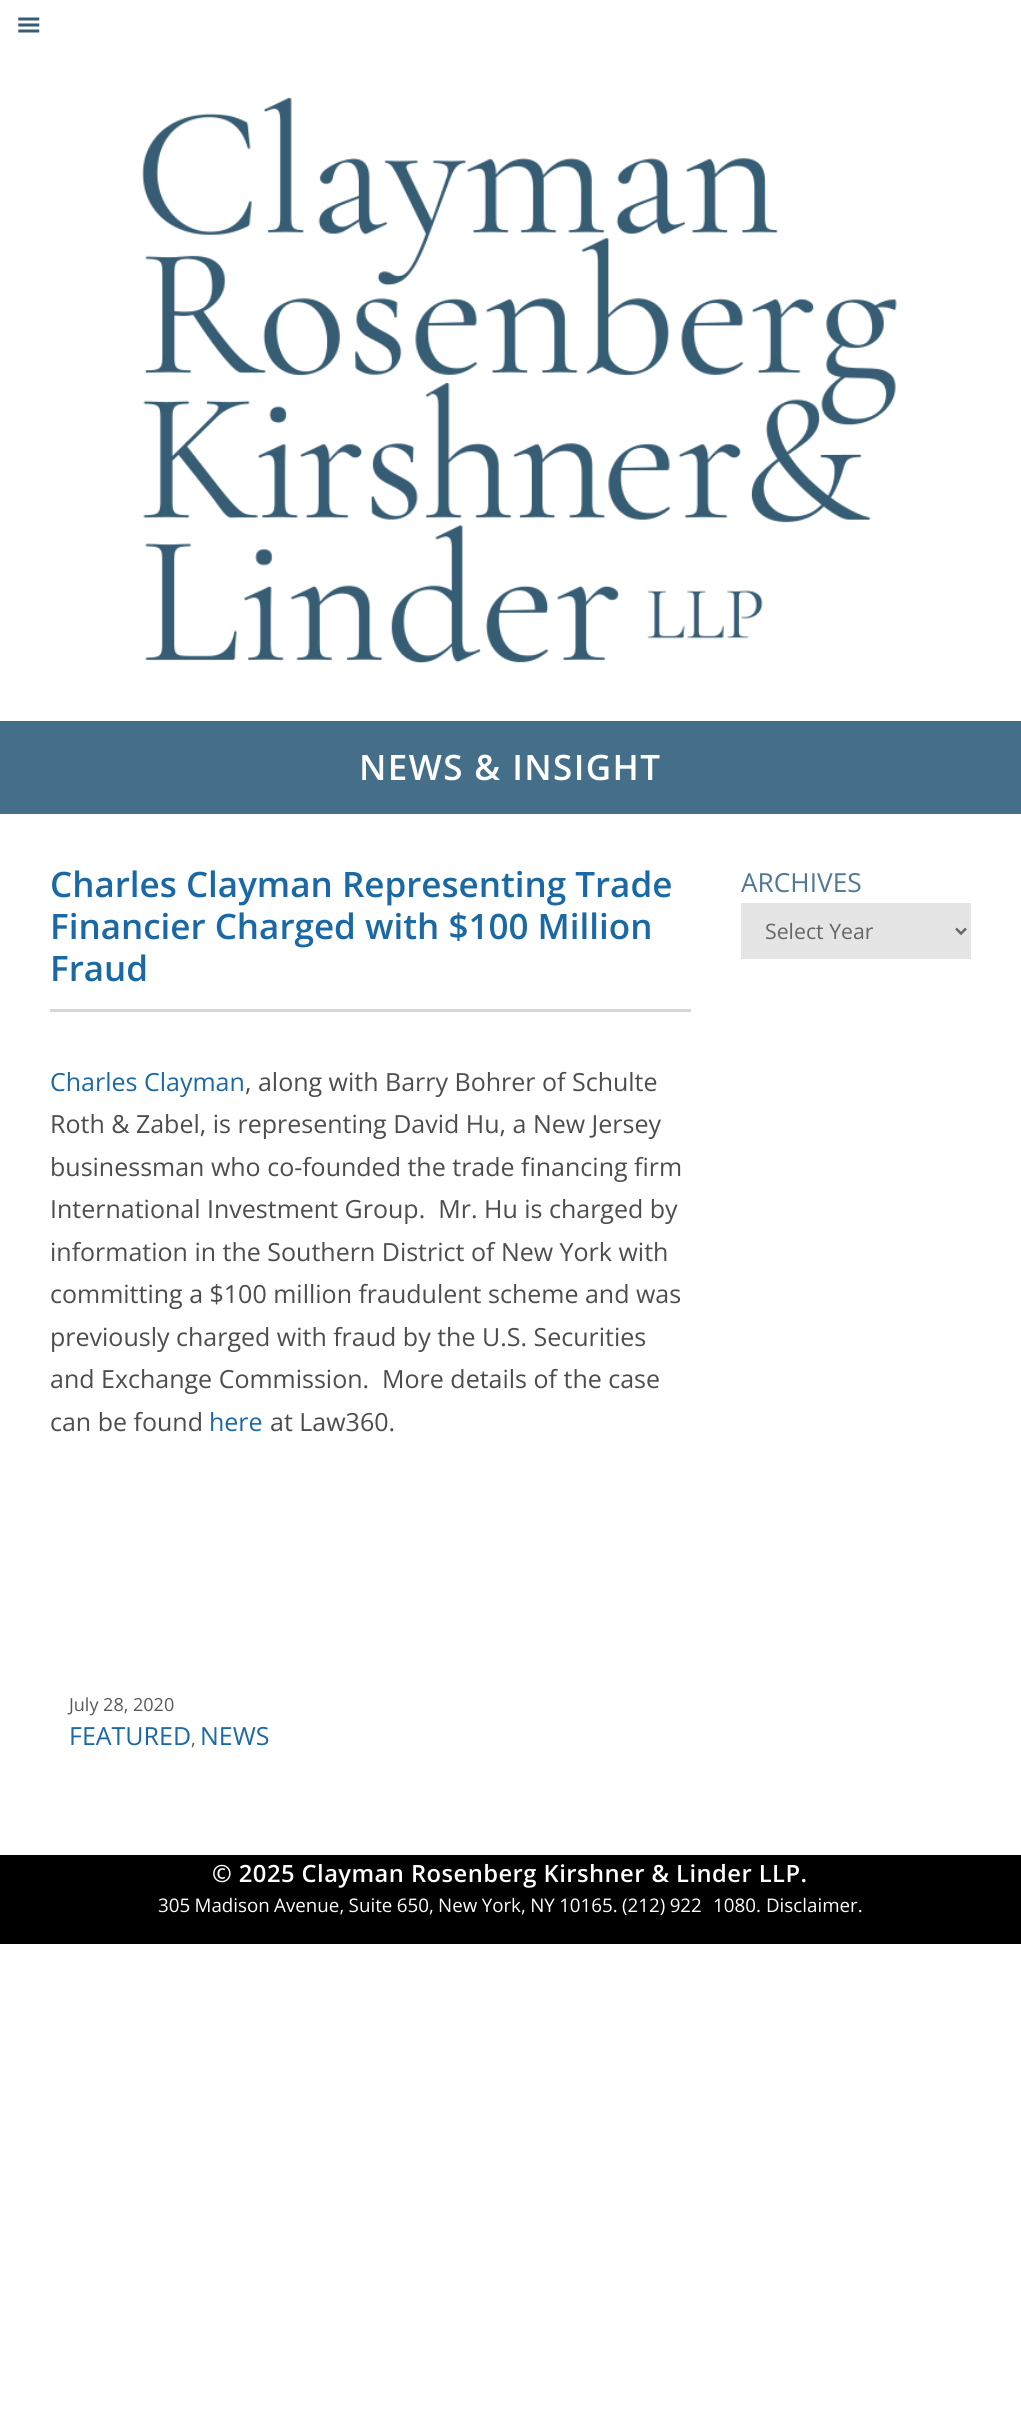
import math
import cairo

surface = cairo.ImageSurface(cairo.FORMAT_RGB24, 1021, 2410)
ctx = cairo.Context(surface)
options = cairo.FontOptions()
options.set_hint_metrics(cairo.HINT_METRICS_OFF)
options.set_hint_style(cairo.HINT_STYLE_NONE)
ctx.set_font_options(options)
ctx.set_miter_limit(4)


def spaced_text(x, y, s, letter, word):
    ctx.move_to(x, y)
    for ch in s:
        ctx.show_text(ch)
        ctx.rel_move_to(letter + word * (ch == ' '), 0)


def picture(path, x, y, w, h):
    ctx.save()
    ctx.set_source_surface(cairo.ImageSurface.create_from_png(path), x, y)
    ctx.rectangle(x, y, w, h)
    ctx.fill()
    ctx.restore()


ctx.set_source_rgb(1, 1, 1)
ctx.paint()
picture("img1.png", 18, 17, 22, 16)
picture("img2.png", 142, 97, 755, 567)
ctx.set_source_rgb(0.271, 0.435, 0.537)
ctx.rectangle(0, 721, 1021, 93)
ctx.fill()
ctx.select_font_face("Open Sans SemiBold")
ctx.set_font_size(35)
ctx.set_source_rgb(1, 1, 1)
spaced_text(359, 780, "NEWS & INSIGHT", 1.4, 0)
ctx.set_source_rgb(0.839, 0.839, 0.839)
ctx.rectangle(50, 1009, 641, 3)
ctx.fill()
ctx.set_source_rgb(0.102, 0.408, 0.643)
ctx.move_to(50, 897)
ctx.show_text("Charles Clayman Representing Trade")
ctx.move_to(50, 939)
ctx.show_text("Financier Charged with $100 Million")
ctx.move_to(50, 981)
ctx.show_text("Fraud")
ctx.select_font_face("Open Sans")
ctx.set_font_size(25)
ctx.move_to(50, 1091)
ctx.show_text("Charles Clayman")
ctx.set_source_rgb(0.302, 0.302, 0.302)
ctx.move_to(245, 1091)
ctx.show_text(", along with Barry Bohrer of Schulte")
ctx.move_to(50, 1133)
ctx.show_text("Roth & Zabel, is representing David Hu, a New Jersey")
ctx.move_to(50, 1176)
ctx.show_text("businessman who co-founded the trade financing firm")
ctx.move_to(50, 1218)
ctx.show_text("International Investment Group.  Mr. Hu is charged by")
ctx.move_to(50, 1261)
ctx.show_text("information in the Southern District of New York with")
ctx.move_to(50, 1303)
ctx.show_text("committing a $100 million fraudulent scheme and was")
ctx.move_to(50, 1346)
ctx.show_text("previously charged with fraud by the U.S. Securities")
ctx.move_to(50, 1388)
ctx.show_text("and Exchange Commission.  More details of the case")
ctx.move_to(50, 1431)
ctx.show_text("can be found")
ctx.set_source_rgb(0.102, 0.408, 0.643)
ctx.move_to(209, 1431)
ctx.show_text("here")
ctx.set_source_rgb(0.302, 0.302, 0.302)
ctx.move_to(270, 1431)
ctx.show_text("at Law360.")
ctx.set_font_size(18)
ctx.set_source_rgb(0.349, 0.349, 0.349)
ctx.move_to(69, 1711)
ctx.show_text("July 28, 2020")
ctx.set_font_size(25)
ctx.set_source_rgb(0.102, 0.408, 0.643)
ctx.move_to(69, 1745)
ctx.show_text("FEATURED")
ctx.set_font_size(18)
ctx.set_source_rgb(0.349, 0.349, 0.349)
ctx.move_to(191, 1745)
ctx.show_text(",")
ctx.set_font_size(25)
ctx.set_source_rgb(0.102, 0.408, 0.643)
ctx.move_to(200, 1745)
ctx.show_text("NEWS")
ctx.set_font_size(26.25)
ctx.set_source_rgb(0.318, 0.475, 0.576)
ctx.move_to(741, 892)
ctx.show_text("ARCHIVES")
ctx.set_source_rgb(0.898, 0.898, 0.898)
ctx.rectangle(741, 903, 230, 56)
ctx.fill()
ctx.new_path()
ctx.move_to(956, 928.5)
ctx.line_to(961, 933.5)
ctx.line_to(966, 928.5)
ctx.set_source_rgb(0.4, 0.4, 0.4)
ctx.set_line_width(2.5)
ctx.stroke()
ctx.set_font_size(21.25)
ctx.move_to(765, 939)
ctx.show_text("Select Year")
ctx.set_source_rgb(0, 0, 0)
ctx.rectangle(0, 1855, 1021, 89)
ctx.fill()
ctx.select_font_face("Open Sans SemiBold")
ctx.set_font_size(23.75)
ctx.set_source_rgb(1, 1, 1)
spaced_text(212, 1882, "© 2025 Clayman Rosenberg Kirshner & Linder LLP.", 0.45, 0)
ctx.select_font_face("Open Sans")
ctx.set_font_size(18.75)
spaced_text(158, 1912, "305 Madison Avenue, Suite 650, New York, NY 10165. (212) 922‑1080.", 0, -0.5)
ctx.move_to(766, 1912)
ctx.show_text("Disclaimer.")
surface.write_to_png("page.png")
